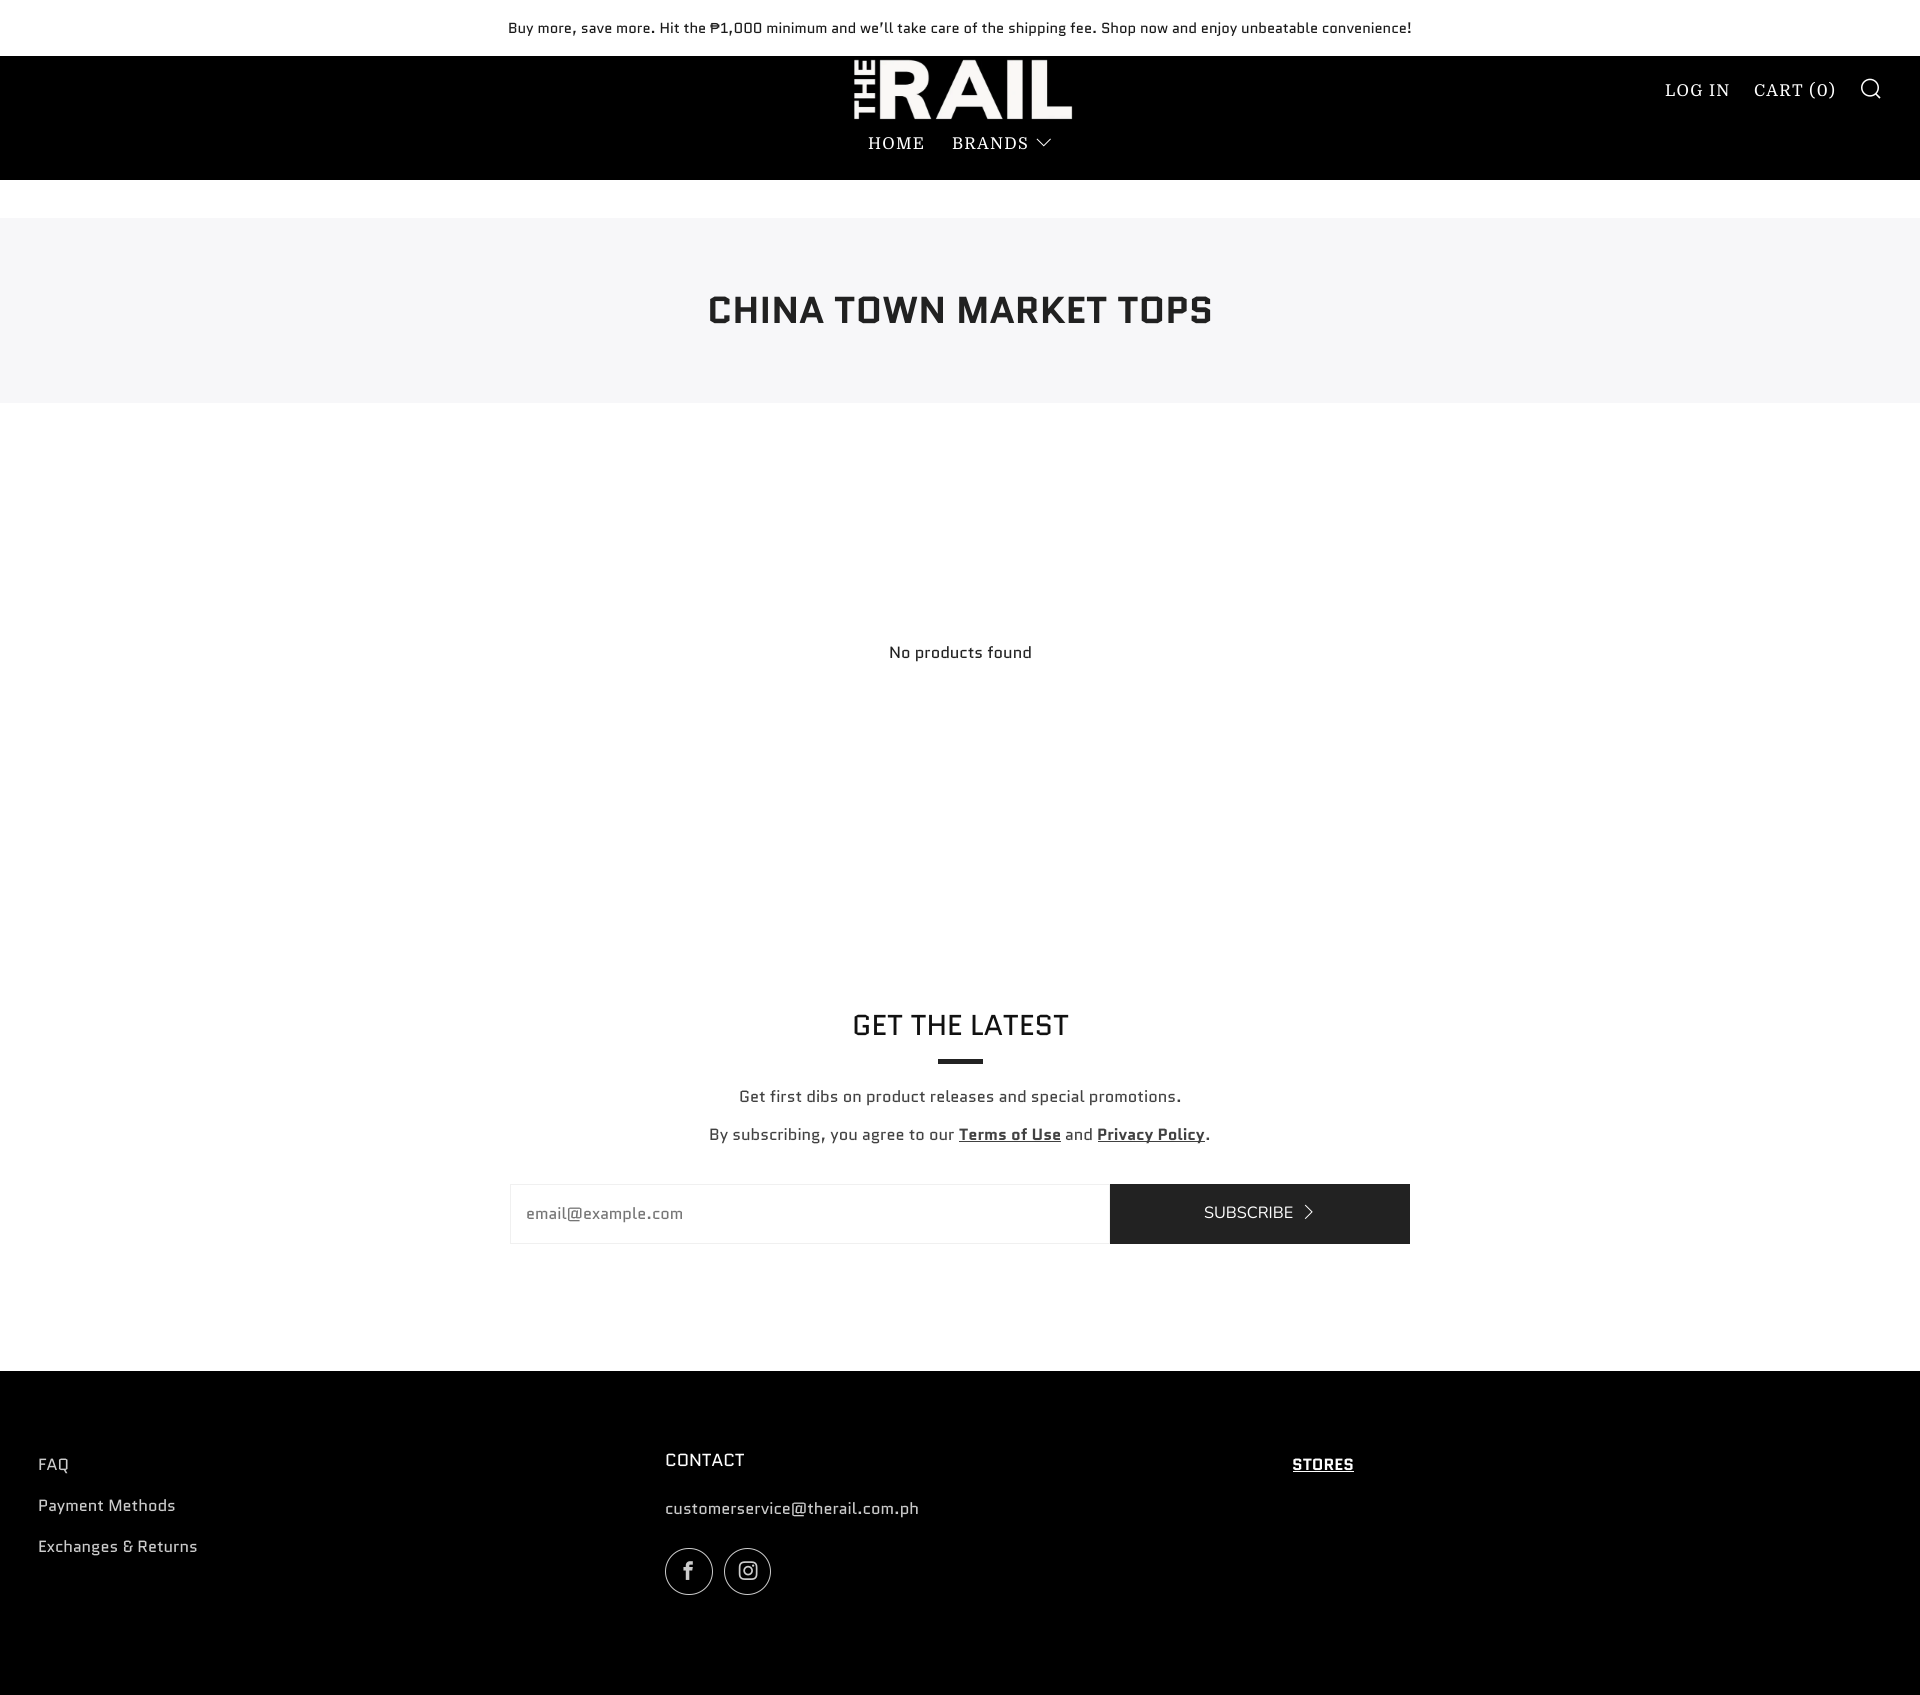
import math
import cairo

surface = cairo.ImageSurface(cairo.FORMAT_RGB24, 1920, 1695)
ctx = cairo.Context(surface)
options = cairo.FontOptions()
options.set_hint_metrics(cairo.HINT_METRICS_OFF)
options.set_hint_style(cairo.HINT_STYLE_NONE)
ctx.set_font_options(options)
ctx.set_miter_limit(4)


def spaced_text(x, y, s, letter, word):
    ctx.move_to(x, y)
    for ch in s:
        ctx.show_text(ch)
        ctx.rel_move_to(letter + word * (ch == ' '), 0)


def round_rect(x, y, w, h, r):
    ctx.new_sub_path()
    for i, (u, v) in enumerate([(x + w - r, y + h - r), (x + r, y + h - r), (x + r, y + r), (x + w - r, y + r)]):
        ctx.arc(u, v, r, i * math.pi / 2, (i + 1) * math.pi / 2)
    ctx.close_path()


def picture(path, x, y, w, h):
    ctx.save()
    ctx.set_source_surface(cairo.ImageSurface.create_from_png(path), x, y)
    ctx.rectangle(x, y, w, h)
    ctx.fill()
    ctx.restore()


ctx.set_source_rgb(1, 1, 1)
ctx.paint()
ctx.select_font_face("Quantico")
ctx.set_font_size(14.6)
ctx.set_source_rgb(0.102, 0.102, 0.102)
ctx.move_to(508, 33)
ctx.show_text("Buy more, save more. Hit the")
ctx.select_font_face("Liberation Sans")
ctx.move_to(710, 33)
ctx.show_text("₱")
ctx.select_font_face("Quantico")
ctx.move_to(720, 33)
ctx.show_text("1,000 minimum and we’ll take care of the shipping fee. Shop now and enjoy unbeatable convenience!")
ctx.set_source_rgb(0, 0, 0)
ctx.rectangle(0, 56, 1920, 124)
ctx.fill()
picture("img1.png", 854, 59, 219, 61)
ctx.select_font_face("Domine")
ctx.set_font_size(16.25)
ctx.set_source_rgb(1, 1, 1)
spaced_text(1665, 96, "LOG IN", 1.25, 0)
spaced_text(1754, 96, "CART (0)", 1.25, 0)
picture("img2.png", 1861, 78, 20, 21)
spaced_text(868, 149, "HOME", 1.25, 0)
spaced_text(952, 149, "BRANDS", 1.25, 0)
picture("img3.png", 1036, 138, 15, 9)
ctx.set_source_rgb(0.965, 0.965, 0.973)
ctx.rectangle(0, 218, 1920, 185)
ctx.fill()
ctx.select_font_face("Quantico", cairo.FONT_SLANT_NORMAL, cairo.FONT_WEIGHT_BOLD)
ctx.set_font_size(37.5)
ctx.set_source_rgb(0.129, 0.129, 0.129)
ctx.move_to(707, 323)
ctx.show_text("CHINA TOWN MARKET TOPS")
ctx.select_font_face("Quantico")
ctx.set_font_size(16.25)
ctx.move_to(889, 658)
ctx.show_text("No products found")
ctx.set_font_size(28.75)
ctx.set_source_rgb(0.067, 0.067, 0.067)
ctx.move_to(852, 1035)
ctx.show_text("GET THE LATEST")
ctx.set_source_rgb(0.133, 0.133, 0.133)
ctx.rectangle(938, 1059, 45, 5)
ctx.fill()
ctx.set_font_size(16.25)
ctx.set_source_rgb(0.255, 0.255, 0.255)
ctx.move_to(739, 1102)
ctx.show_text("Get first dibs on product releases and special promotions.")
ctx.move_to(709, 1140)
ctx.show_text("By subscribing, you agree to our")
ctx.select_font_face("Quantico", cairo.FONT_SLANT_NORMAL, cairo.FONT_WEIGHT_BOLD)
ctx.move_to(959, 1140)
ctx.show_text("Terms of Use")
ctx.rectangle(959, 1141, 102, 1)
ctx.fill()
ctx.select_font_face("Quantico")
ctx.move_to(1065, 1140)
ctx.show_text("and")
ctx.rectangle(1098, 1141, 107, 1)
ctx.fill()
ctx.select_font_face("Quantico", cairo.FONT_SLANT_NORMAL, cairo.FONT_WEIGHT_BOLD)
ctx.move_to(1097, 1140)
ctx.show_text("Privacy Policy")
ctx.select_font_face("Quantico")
ctx.move_to(1205, 1140)
ctx.show_text(".")
ctx.rectangle(510.5, 1184.5, 599, 59)
ctx.set_source_rgb(0.941, 0.941, 0.941)
ctx.set_line_width(1)
ctx.stroke()
ctx.set_source_rgb(0.459, 0.459, 0.459)
ctx.move_to(526, 1219)
ctx.show_text("email@example.com")
ctx.set_source_rgb(0.133, 0.133, 0.133)
ctx.rectangle(1110, 1184, 300, 60)
ctx.fill()
ctx.select_font_face("Nunito")
ctx.set_source_rgb(1, 1, 1)
ctx.move_to(1204, 1218)
ctx.show_text("SUBSCRIBE")
picture("img4.png", 1304, 1204, 9, 15)
ctx.set_source_rgb(0, 0, 0)
ctx.rectangle(0, 1371, 1920, 324)
ctx.fill()
ctx.select_font_face("Quantico")
ctx.set_source_rgb(0.8, 0.8, 0.8)
ctx.move_to(38, 1470)
ctx.show_text("FAQ")
ctx.move_to(38, 1511)
ctx.show_text("Payment Methods")
ctx.move_to(38, 1552)
ctx.show_text("Exchanges & Returns")
ctx.set_font_size(17.5)
ctx.set_source_rgb(1, 1, 1)
ctx.move_to(665, 1466)
ctx.show_text("CONTACT")
ctx.set_font_size(16.25)
ctx.set_source_rgb(0.8, 0.8, 0.8)
ctx.move_to(665, 1514)
ctx.show_text("customerservice@therail.com.ph")
round_rect(665.5, 1548.5, 47, 46, 23)
ctx.stroke()
picture("img5.png", 683, 1561, 10, 19)
ctx.arc(747.5, 1571.5, 23, 0, 2 * math.pi)
ctx.stroke()
picture("img6.png", 738, 1561, 20, 19)
ctx.select_font_face("Quantico", cairo.FONT_SLANT_NORMAL, cairo.FONT_WEIGHT_BOLD)
ctx.set_source_rgb(1, 1, 1)
ctx.move_to(1292, 1470)
ctx.show_text("STORES")
ctx.rectangle(1293, 1471, 61, 1)
ctx.fill()
surface.write_to_png("page.png")
